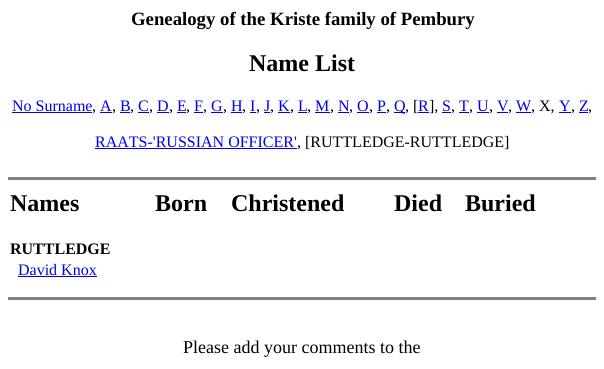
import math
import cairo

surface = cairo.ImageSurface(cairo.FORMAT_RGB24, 604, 369)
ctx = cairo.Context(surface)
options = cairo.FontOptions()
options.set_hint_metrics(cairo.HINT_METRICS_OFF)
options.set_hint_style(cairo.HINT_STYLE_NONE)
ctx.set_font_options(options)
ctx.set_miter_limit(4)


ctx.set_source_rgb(1, 1, 1)
ctx.paint()
ctx.select_font_face("Liberation Serif", cairo.FONT_SLANT_NORMAL, cairo.FONT_WEIGHT_BOLD)
ctx.set_font_size(18.75)
ctx.set_source_rgb(0, 0, 0)
ctx.move_to(131, 25)
ctx.show_text("Genealogy of the Kriste family of Pembury")
ctx.set_font_size(24)
ctx.move_to(249, 71)
ctx.show_text("Name List")
ctx.select_font_face("Liberation Serif")
ctx.set_font_size(16)
ctx.set_source_rgb(0, 0, 0.933)
ctx.move_to(12, 111)
ctx.show_text("No Surname")
ctx.rectangle(12, 112, 80, 1)
ctx.fill()
ctx.move_to(100, 111)
ctx.show_text("A")
ctx.rectangle(100, 112, 12, 1)
ctx.fill()
ctx.move_to(120, 111)
ctx.show_text("B")
ctx.rectangle(120, 112, 10, 1)
ctx.fill()
ctx.move_to(138, 111)
ctx.show_text("C")
ctx.rectangle(138, 112, 11, 1)
ctx.fill()
ctx.move_to(157, 111)
ctx.show_text("D")
ctx.rectangle(157, 112, 12, 1)
ctx.fill()
ctx.move_to(177, 111)
ctx.show_text("E")
ctx.rectangle(177, 112, 9, 1)
ctx.fill()
ctx.move_to(194, 111)
ctx.show_text("F")
ctx.rectangle(194, 112, 9, 1)
ctx.fill()
ctx.move_to(211, 111)
ctx.show_text("G")
ctx.rectangle(211, 112, 12, 1)
ctx.fill()
ctx.move_to(231, 111)
ctx.show_text("H")
ctx.rectangle(231, 112, 11, 1)
ctx.fill()
ctx.move_to(250, 111)
ctx.show_text("I")
ctx.rectangle(250, 112, 6, 1)
ctx.fill()
ctx.move_to(264, 111)
ctx.show_text("J")
ctx.rectangle(264, 112, 6, 1)
ctx.fill()
ctx.move_to(278, 111)
ctx.show_text("K")
ctx.rectangle(278, 112, 12, 1)
ctx.fill()
ctx.move_to(298, 111)
ctx.show_text("L")
ctx.rectangle(298, 112, 9, 1)
ctx.fill()
ctx.move_to(315, 111)
ctx.show_text("M")
ctx.rectangle(315, 112, 15, 1)
ctx.fill()
ctx.move_to(338, 111)
ctx.show_text("N")
ctx.rectangle(338, 112, 11, 1)
ctx.fill()
ctx.move_to(357, 111)
ctx.show_text("O")
ctx.rectangle(357, 112, 12, 1)
ctx.fill()
ctx.move_to(377, 111)
ctx.show_text("P")
ctx.rectangle(377, 112, 9, 1)
ctx.fill()
ctx.rectangle(394, 112, 11, 1)
ctx.fill()
ctx.move_to(394, 111)
ctx.show_text("Q")
ctx.set_source_rgb(0, 0, 0)
ctx.move_to(405, 111)
ctx.show_text(", [")
ctx.set_source_rgb(0, 0, 0.933)
ctx.move_to(418, 111)
ctx.show_text("R")
ctx.rectangle(418, 112, 11, 1)
ctx.fill()
ctx.set_source_rgb(0, 0, 0)
ctx.move_to(429, 111)
ctx.show_text("],")
ctx.set_source_rgb(0, 0, 0.933)
ctx.move_to(442, 111)
ctx.show_text("S")
ctx.rectangle(442, 112, 9, 1)
ctx.fill()
ctx.move_to(459, 111)
ctx.show_text("T")
ctx.rectangle(459, 112, 10, 1)
ctx.fill()
ctx.move_to(477, 111)
ctx.show_text("U")
ctx.rectangle(477, 112, 12, 1)
ctx.fill()
ctx.move_to(497, 111)
ctx.show_text("V")
ctx.rectangle(497, 112, 11, 1)
ctx.fill()
ctx.move_to(516, 111)
ctx.show_text("W")
ctx.rectangle(516, 112, 15, 1)
ctx.fill()
ctx.set_source_rgb(0, 0, 0)
ctx.move_to(531, 111)
ctx.show_text(", X,")
ctx.set_source_rgb(0, 0, 0.933)
ctx.move_to(559, 111)
ctx.show_text("Y")
ctx.rectangle(559, 112, 12, 1)
ctx.fill()
ctx.move_to(579, 111)
ctx.show_text("Z")
ctx.rectangle(579, 112, 9, 1)
ctx.fill()
ctx.set_source_rgb(0, 0, 0)
ctx.move_to(92, 111)
ctx.show_text(",")
ctx.move_to(112, 111)
ctx.show_text(",")
ctx.move_to(130, 111)
ctx.show_text(",")
ctx.move_to(149, 111)
ctx.show_text(",")
ctx.move_to(169, 111)
ctx.show_text(",")
ctx.move_to(186, 111)
ctx.show_text(",")
ctx.move_to(203, 111)
ctx.show_text(",")
ctx.move_to(223, 111)
ctx.show_text(",")
ctx.move_to(242, 111)
ctx.show_text(",")
ctx.move_to(256, 111)
ctx.show_text(",")
ctx.move_to(270, 111)
ctx.show_text(",")
ctx.move_to(290, 111)
ctx.show_text(",")
ctx.move_to(307, 111)
ctx.show_text(",")
ctx.move_to(330, 111)
ctx.show_text(",")
ctx.move_to(349, 111)
ctx.show_text(",")
ctx.move_to(369, 111)
ctx.show_text(",")
ctx.move_to(386, 111)
ctx.show_text(",")
ctx.move_to(451, 111)
ctx.show_text(",")
ctx.move_to(469, 111)
ctx.show_text(",")
ctx.move_to(489, 111)
ctx.show_text(",")
ctx.move_to(508, 111)
ctx.show_text(",")
ctx.move_to(571, 111)
ctx.show_text(",")
ctx.move_to(588, 111)
ctx.show_text(",")
ctx.set_source_rgb(0, 0, 0.933)
ctx.move_to(95, 147)
ctx.show_text("RAATS-'RUSSIAN OFFICER'")
ctx.rectangle(95, 148, 202, 1)
ctx.fill()
ctx.set_source_rgb(0, 0, 0)
ctx.move_to(297, 147)
ctx.show_text(", [RUTTLEDGE-RUTTLEDGE]")
ctx.set_source_rgb(0.502, 0.502, 0.502)
ctx.rectangle(8, 177, 588, 3)
ctx.fill()
ctx.select_font_face("Liberation Serif", cairo.FONT_SLANT_NORMAL, cairo.FONT_WEIGHT_BOLD)
ctx.set_font_size(24)
ctx.set_source_rgb(0, 0, 0)
ctx.move_to(10, 211)
ctx.show_text("Names")
ctx.move_to(155, 211)
ctx.show_text("Born")
ctx.move_to(231, 211)
ctx.show_text("Christened")
ctx.move_to(394, 211)
ctx.show_text("Died")
ctx.move_to(465, 211)
ctx.show_text("Buried")
ctx.set_font_size(16)
ctx.move_to(10, 254)
ctx.show_text("RUTTLEDGE")
ctx.select_font_face("Liberation Serif")
ctx.set_source_rgb(0, 0, 0.933)
ctx.move_to(18, 275)
ctx.show_text("David Knox")
ctx.rectangle(18, 276, 79, 1)
ctx.fill()
ctx.set_source_rgb(0.502, 0.502, 0.502)
ctx.rectangle(8, 297, 588, 3)
ctx.fill()
ctx.set_font_size(18)
ctx.set_source_rgb(0, 0, 0)
ctx.move_to(183, 353)
ctx.show_text("Please add your comments to the")
surface.write_to_png("page.png")
